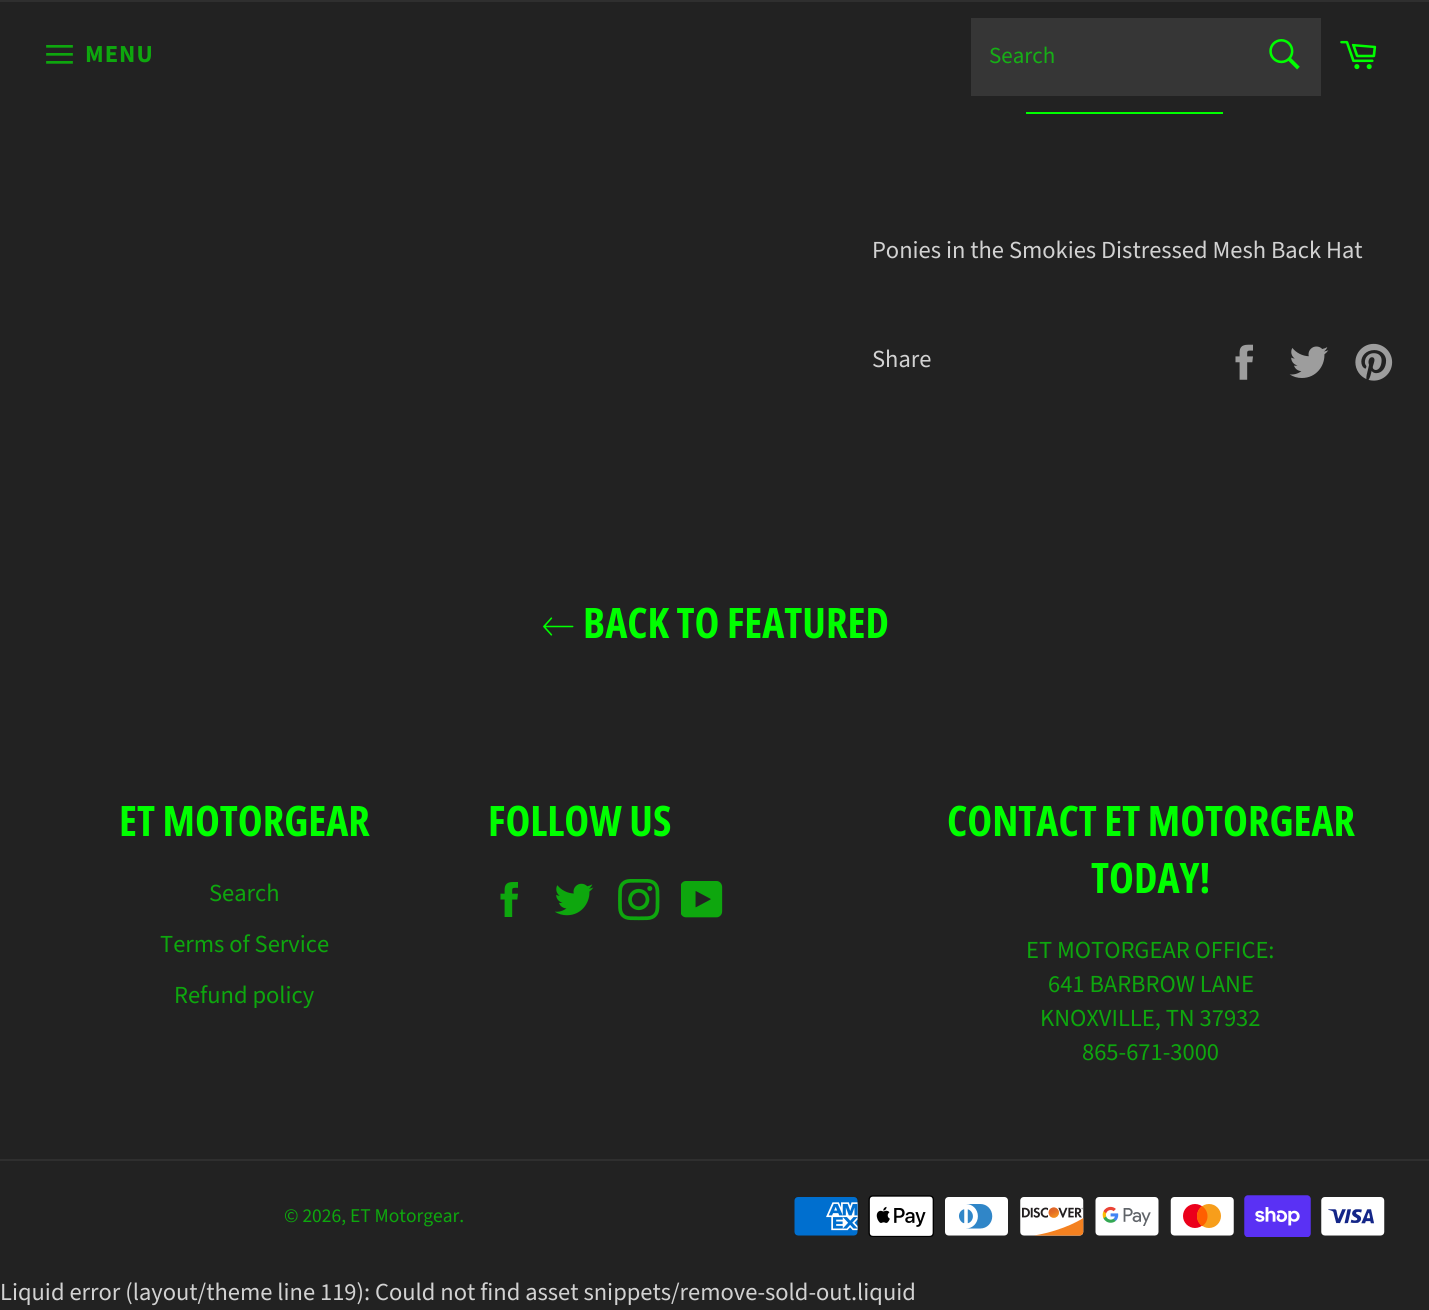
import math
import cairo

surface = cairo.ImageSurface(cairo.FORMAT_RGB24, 1429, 1310)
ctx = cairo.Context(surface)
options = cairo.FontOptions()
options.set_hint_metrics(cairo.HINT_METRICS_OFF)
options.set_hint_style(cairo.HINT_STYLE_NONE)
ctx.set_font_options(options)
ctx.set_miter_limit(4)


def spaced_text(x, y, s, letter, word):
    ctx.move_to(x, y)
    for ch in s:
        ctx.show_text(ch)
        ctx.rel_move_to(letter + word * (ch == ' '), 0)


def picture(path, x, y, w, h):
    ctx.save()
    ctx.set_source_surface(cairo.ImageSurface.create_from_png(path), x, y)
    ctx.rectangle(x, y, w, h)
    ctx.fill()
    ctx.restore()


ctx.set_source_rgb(0.133, 0.133, 0.133)
ctx.paint()
ctx.set_source_rgb(0.184, 0.184, 0.184)
ctx.rectangle(0, 0, 1429, 2)
ctx.fill()
picture("img1.png", 46, 45, 27, 19)
ctx.select_font_face("Source Sans Pro", cairo.FONT_SLANT_NORMAL, cairo.FONT_WEIGHT_BOLD)
ctx.set_font_size(24.5)
ctx.set_source_rgb(0.055, 0.655, 0.055)
spaced_text(85, 62, "MENU", 1, 0)
ctx.set_source_rgb(0.212, 0.212, 0.212)
ctx.rectangle(971, 18, 350, 78)
ctx.fill()
ctx.select_font_face("Source Sans Pro")
ctx.set_font_size(23)
ctx.set_source_rgb(0.086, 0.686, 0.086)
ctx.move_to(989, 63)
ctx.show_text("Search")
picture("img2.png", 1269, 39, 31, 31)
picture("img3.png", 1340, 40, 37, 30)
ctx.set_source_rgb(0, 1, 0)
ctx.rectangle(1026, 112, 197, 2)
ctx.fill()
ctx.set_font_size(24.5)
ctx.set_source_rgb(0.824, 0.824, 0.824)
ctx.move_to(872, 258)
ctx.show_text("Ponies in the Smokies Distressed Mesh Back Hat")
ctx.move_to(872, 367)
ctx.show_text("Share")
picture("img4.png", 1235, 344, 18, 36)
picture("img5.png", 1289, 346, 40, 32)
picture("img6.png", 1355, 343, 38, 38)
picture("img7.png", 543, 617, 31, 19)
ctx.select_font_face("Open Sans Condensed", cairo.FONT_SLANT_NORMAL, cairo.FONT_WEIGHT_BOLD)
ctx.set_font_size(42)
ctx.set_source_rgb(0, 1, 0)
ctx.move_to(583, 638)
ctx.show_text("BACK TO FEATURED")
ctx.move_to(119, 836)
ctx.show_text("ET MOTORGEAR")
ctx.select_font_face("Source Sans Pro")
ctx.set_font_size(24.5)
ctx.set_source_rgb(0.055, 0.655, 0.055)
ctx.move_to(209, 901)
ctx.show_text("Search")
ctx.move_to(160, 952)
ctx.show_text("Terms of Service")
ctx.move_to(174, 1003)
ctx.show_text("Refund policy")
ctx.select_font_face("Open Sans Condensed", cairo.FONT_SLANT_NORMAL, cairo.FONT_WEIGHT_BOLD)
ctx.set_font_size(42)
ctx.set_source_rgb(0, 1, 0)
ctx.move_to(488, 836)
ctx.show_text("FOLLOW US")
picture("img8.png", 500, 882, 18, 35)
picture("img9.png", 555, 883, 39, 33)
picture("img10.png", 618, 879, 42, 42)
picture("img11.png", 681, 881, 42, 37)
ctx.move_to(947, 836)
ctx.show_text("CONTACT ET MOTORGEAR")
ctx.move_to(1091, 893)
ctx.show_text("TODAY!")
ctx.select_font_face("Source Sans Pro")
ctx.set_font_size(24.5)
ctx.set_source_rgb(0.055, 0.655, 0.055)
ctx.move_to(1026, 958)
ctx.show_text("ET MOTORGEAR OFFICE:")
ctx.move_to(1048, 992)
ctx.show_text("641 BARBROW LANE")
ctx.move_to(1040, 1026)
ctx.show_text("KNOXVILLE, TN 37932")
ctx.move_to(1082, 1060)
ctx.show_text("865-671-3000")
ctx.set_source_rgb(0.184, 0.184, 0.184)
ctx.rectangle(0, 1159, 1429, 2)
ctx.fill()
ctx.set_font_size(19.5)
ctx.set_source_rgb(0.055, 0.655, 0.055)
ctx.move_to(284, 1222)
ctx.show_text("© 2026, ET Motorgear.")
picture("img12.png", 794, 1197, 64, 39)
picture("img13.png", 868, 1195, 66, 42)
picture("img14.png", 945, 1197, 63, 39)
picture("img15.png", 1020, 1197, 64, 39)
picture("img16.png", 1095, 1197, 64, 39)
picture("img17.png", 1170, 1197, 64, 39)
picture("img18.png", 1244, 1195, 67, 42)
picture("img19.png", 1321, 1197, 64, 39)
ctx.set_font_size(24.5)
ctx.set_source_rgb(0.824, 0.824, 0.824)
ctx.move_to(0, 1300)
ctx.show_text("Liquid error (layout/theme line 119): Could not find asset snippets/remove-sold-out.liquid")
surface.write_to_png("page.png")
